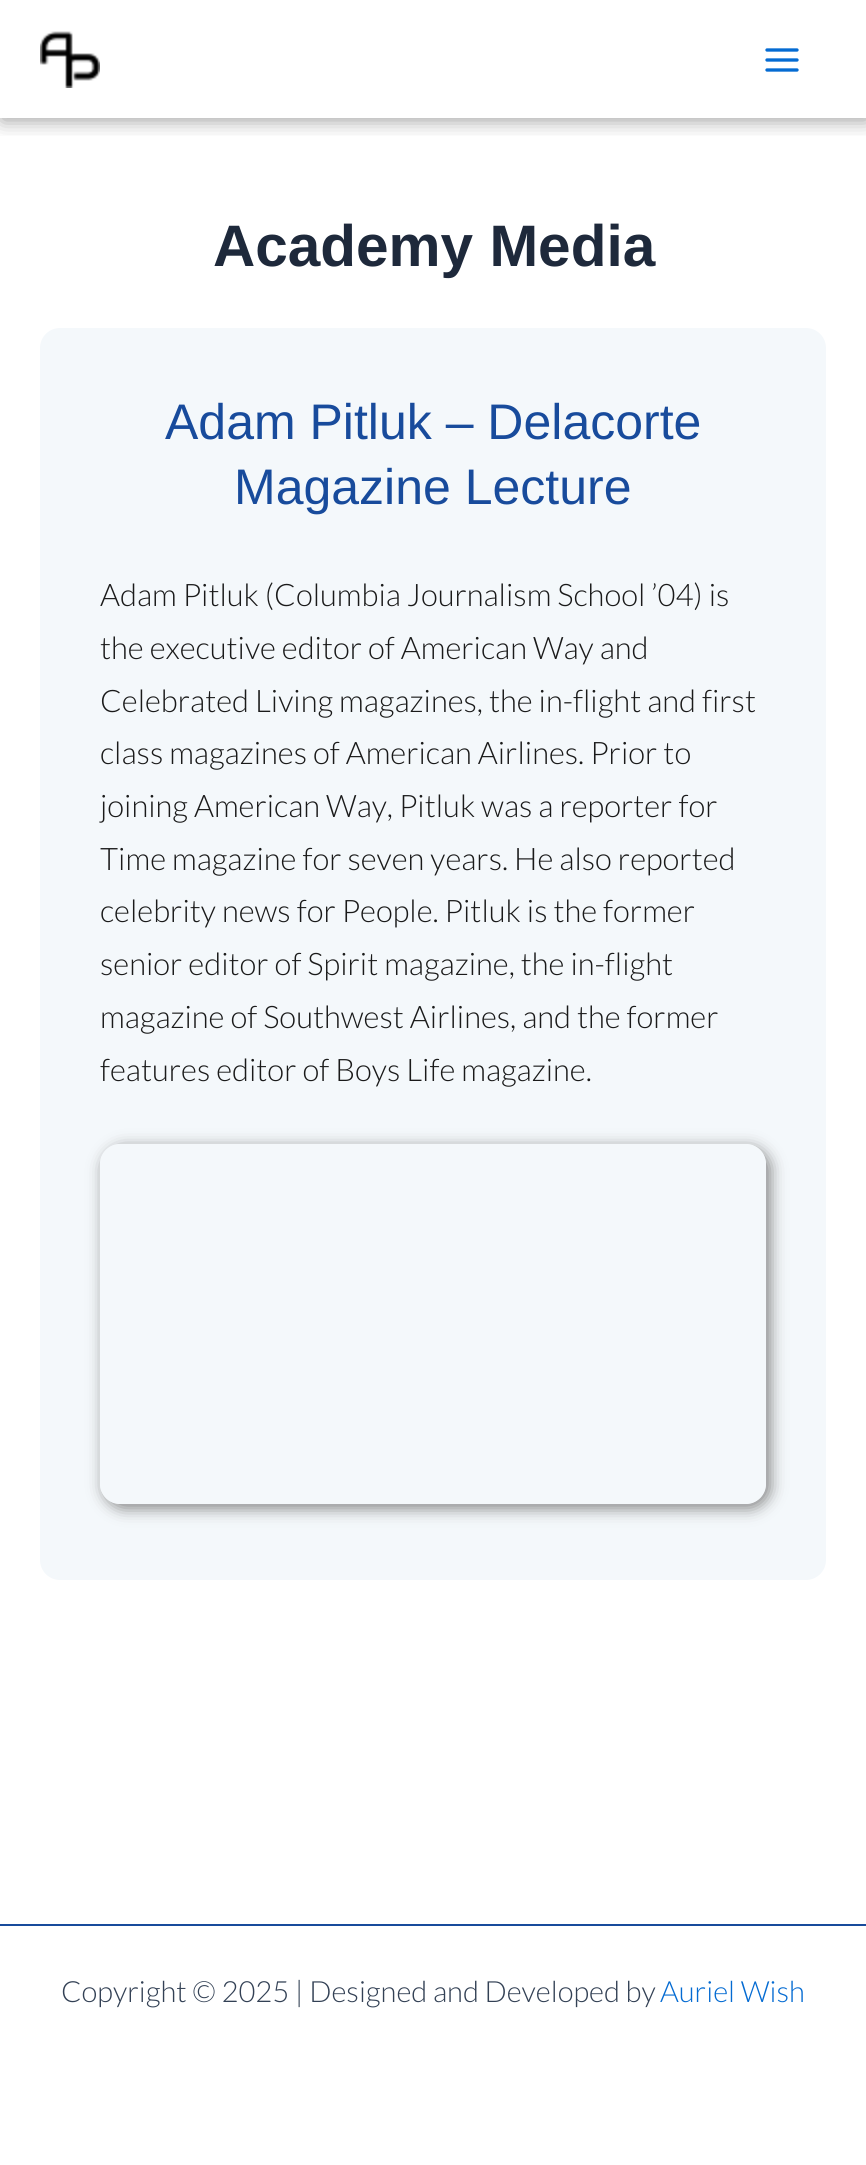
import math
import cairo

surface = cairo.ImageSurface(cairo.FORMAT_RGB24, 866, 2165)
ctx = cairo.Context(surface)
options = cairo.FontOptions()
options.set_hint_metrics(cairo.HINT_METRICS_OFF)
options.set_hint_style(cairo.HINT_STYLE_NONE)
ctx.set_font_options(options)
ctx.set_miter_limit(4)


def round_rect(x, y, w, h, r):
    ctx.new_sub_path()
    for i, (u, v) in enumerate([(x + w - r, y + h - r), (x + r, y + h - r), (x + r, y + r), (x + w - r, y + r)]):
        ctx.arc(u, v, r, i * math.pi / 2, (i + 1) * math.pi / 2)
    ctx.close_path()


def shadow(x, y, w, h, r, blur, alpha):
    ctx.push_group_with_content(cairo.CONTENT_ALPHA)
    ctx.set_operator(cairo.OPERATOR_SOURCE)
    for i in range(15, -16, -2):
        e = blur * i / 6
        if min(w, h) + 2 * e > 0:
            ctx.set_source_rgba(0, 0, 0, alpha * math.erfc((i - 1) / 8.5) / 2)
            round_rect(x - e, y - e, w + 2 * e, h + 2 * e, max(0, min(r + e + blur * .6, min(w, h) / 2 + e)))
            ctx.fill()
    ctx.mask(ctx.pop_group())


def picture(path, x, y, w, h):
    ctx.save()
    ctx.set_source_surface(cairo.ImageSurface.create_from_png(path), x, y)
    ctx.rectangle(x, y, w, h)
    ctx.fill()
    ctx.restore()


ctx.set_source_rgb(1, 1, 1)
ctx.paint()
ctx.save()
ctx.rectangle(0, 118, 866, 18)
ctx.clip()
ctx.set_source_rgb(0, 0, 0)
shadow(2, 2, 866, 118, 0, 10, 0.4)
ctx.restore()
picture("img1.png", 40, 31, 60, 57)
picture("img2.png", 765, 48, 34, 24)
ctx.select_font_face("Liberation Sans", cairo.FONT_SLANT_NORMAL, cairo.FONT_WEIGHT_BOLD)
ctx.set_font_size(58.5)
ctx.set_source_rgb(0.118, 0.161, 0.231)
ctx.move_to(213, 266)
ctx.show_text("Academy Media")
ctx.set_source_rgb(0.957, 0.969, 0.984)
round_rect(40, 328, 786, 1252, 20)
ctx.fill()
ctx.select_font_face("Liberation Sans")
ctx.set_font_size(50)
ctx.set_source_rgb(0.094, 0.294, 0.612)
ctx.move_to(165, 439)
ctx.show_text("Adam Pitluk – Delacorte")
ctx.move_to(234, 504)
ctx.show_text("Magazine Lecture")
ctx.select_font_face("Lato Light")
ctx.set_font_size(31)
ctx.set_source_rgb(0.102, 0.102, 0.102)
ctx.move_to(100, 606)
ctx.show_text("Adam Pitluk (Columbia Journalism School ’04) is")
ctx.move_to(100, 659)
ctx.show_text("the executive editor of American Way and")
ctx.move_to(100, 712)
ctx.show_text("Celebrated Living magazines, the in-flight and first")
ctx.move_to(100, 764)
ctx.show_text("class magazines of American Airlines. Prior to")
ctx.move_to(100, 817)
ctx.show_text("joining American Way, Pitluk was a reporter for")
ctx.move_to(100, 870)
ctx.show_text("Time magazine for seven years. He also reported")
ctx.move_to(100, 922)
ctx.show_text("celebrity news for People. Pitluk is the former")
ctx.move_to(100, 975)
ctx.show_text("senior editor of Spirit magazine, the in-flight")
ctx.move_to(100, 1028)
ctx.show_text("magazine of Southwest Airlines, and the former")
ctx.move_to(100, 1081)
ctx.show_text("features editor of Boys Life magazine.")
ctx.save()
ctx.set_fill_rule(cairo.FILL_RULE_EVEN_ODD)
ctx.new_path()
ctx.move_to(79, 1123)
ctx.line_to(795, 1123)
ctx.line_to(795, 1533)
ctx.line_to(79, 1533)
ctx.close_path()
ctx.move_to(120, 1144)
ctx.line_to(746, 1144)
ctx.curve_to(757, 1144, 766, 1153, 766, 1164)
ctx.line_to(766, 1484)
ctx.curve_to(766, 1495, 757, 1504, 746, 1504)
ctx.line_to(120, 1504)
ctx.curve_to(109, 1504, 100, 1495, 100, 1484)
ctx.line_to(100, 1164)
ctx.curve_to(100, 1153, 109, 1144, 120, 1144)
ctx.close_path()
ctx.clip()
ctx.set_source_rgb(0.502, 0.502, 0.502)
shadow(104, 1148, 666, 360, 20, 8, 1)
ctx.restore()
ctx.set_source_rgb(0.094, 0.294, 0.612)
ctx.rectangle(0, 1924, 866, 2)
ctx.fill()
ctx.set_font_size(29.2)
ctx.set_source_rgb(0.2, 0.255, 0.333)
ctx.move_to(61, 2002)
ctx.show_text("Copyright © 2025 | Designed and Developed by")
ctx.set_source_rgb(0.016, 0.42, 0.824)
ctx.move_to(660, 2002)
ctx.show_text("Auriel Wish")
surface.write_to_png("page.png")
